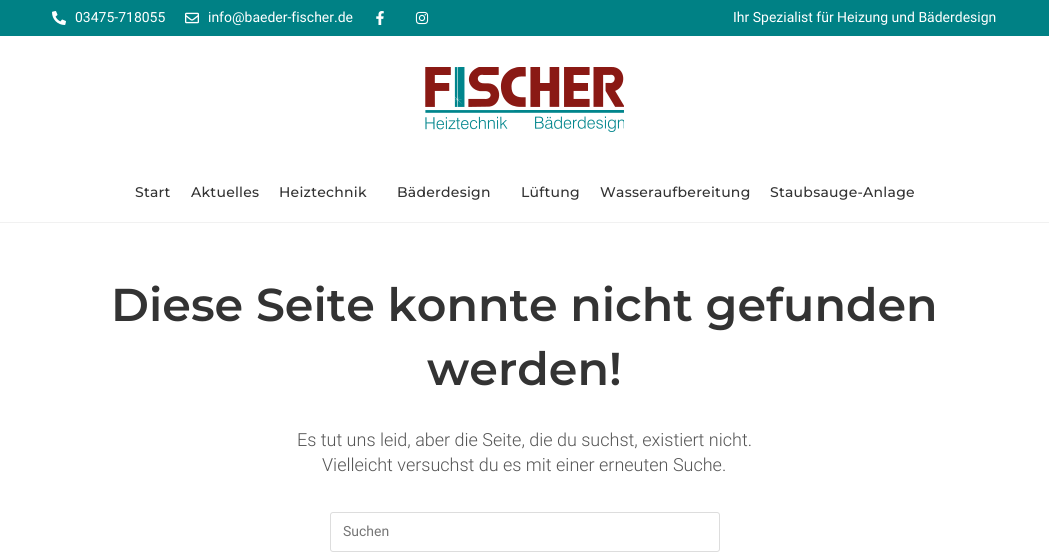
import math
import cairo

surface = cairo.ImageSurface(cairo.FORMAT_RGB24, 1049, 559)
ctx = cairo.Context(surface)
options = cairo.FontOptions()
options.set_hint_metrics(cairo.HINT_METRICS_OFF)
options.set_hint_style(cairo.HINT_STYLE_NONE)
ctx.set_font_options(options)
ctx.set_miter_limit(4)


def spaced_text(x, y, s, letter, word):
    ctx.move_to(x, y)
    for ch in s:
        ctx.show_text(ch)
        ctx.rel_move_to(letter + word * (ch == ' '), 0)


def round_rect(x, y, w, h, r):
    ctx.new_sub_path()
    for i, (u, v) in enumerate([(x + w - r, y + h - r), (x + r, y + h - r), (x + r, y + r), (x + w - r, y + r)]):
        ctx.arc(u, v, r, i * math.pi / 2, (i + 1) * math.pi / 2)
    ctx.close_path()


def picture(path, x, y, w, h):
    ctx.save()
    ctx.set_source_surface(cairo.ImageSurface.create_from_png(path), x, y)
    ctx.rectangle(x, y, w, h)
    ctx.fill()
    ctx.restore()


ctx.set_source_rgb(1, 1, 1)
ctx.paint()
ctx.set_source_rgb(0, 0.506, 0.522)
ctx.rectangle(0, 0, 1049, 36)
ctx.fill()
picture("img1.png", 52, 11, 14, 14)
ctx.select_font_face("Roboto")
ctx.set_font_size(14)
ctx.set_source_rgb(1, 1, 1)
ctx.move_to(75, 22)
ctx.show_text("03475-718055")
picture("img2.png", 185, 12, 14, 12)
ctx.move_to(208, 22)
ctx.show_text("info@baeder-fischer.de")
picture("img3.png", 376, 11, 8, 14)
picture("img4.png", 415, 11, 14, 14)
ctx.move_to(733, 22)
ctx.show_text("Ihr Spezialist für Heizung und Bäderdesign")
ctx.set_source_rgb(0.945, 0.945, 0.945)
ctx.rectangle(0, 222, 1049, 1)
ctx.fill()
picture("img5.png", 425, 67, 199, 65)
ctx.select_font_face("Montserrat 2 Thin")
ctx.set_source_rgb(0.2, 0.2, 0.2)
spaced_text(135, 197, "Start", 0.25, 0)
spaced_text(191, 197, "Aktuelles", 0.25, 0)
spaced_text(279, 197, "Heiztechnik", 0.25, 0)
spaced_text(397, 197, "Bäderdesign", 0.25, 0)
spaced_text(521, 197, "Lüftung", 0.25, 0)
spaced_text(600, 197, "Wasseraufbereitung", 0.25, 0)
spaced_text(770, 197, "Staubsauge-Anlage", 0.25, 0)
ctx.select_font_face("Montserrat Thin")
ctx.set_font_size(46)
ctx.move_to(111, 321)
ctx.show_text("Diese Seite konnte nicht gefunden")
ctx.move_to(427, 385)
ctx.show_text("werden!")
ctx.select_font_face("Roboto Light")
ctx.set_font_size(18)
ctx.set_source_rgb(0.333, 0.333, 0.333)
ctx.move_to(297, 446)
ctx.show_text("Es tut uns leid, aber die Seite, die du suchst, existiert nicht.")
ctx.move_to(322, 471)
ctx.show_text("Vielleicht versuchst du es mit einer erneuten Suche.")
round_rect(330.5, 512.5, 389, 39, 2.5)
ctx.set_source_rgb(0.867, 0.867, 0.867)
ctx.set_line_width(1)
ctx.stroke()
ctx.select_font_face("Roboto")
ctx.set_font_size(14)
ctx.set_source_rgb(0.459, 0.459, 0.459)
ctx.move_to(343, 536)
ctx.show_text("Suchen")
surface.write_to_png("page.png")
